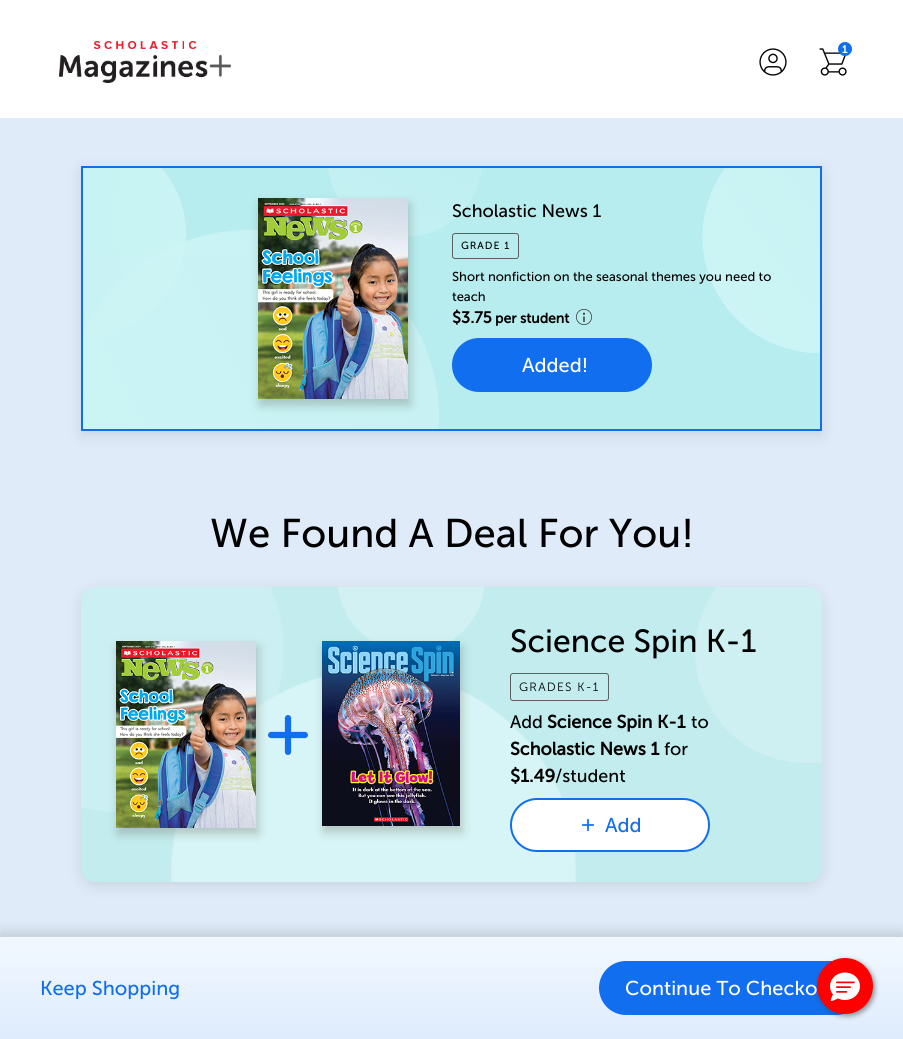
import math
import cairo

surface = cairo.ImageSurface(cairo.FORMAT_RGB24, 903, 1039)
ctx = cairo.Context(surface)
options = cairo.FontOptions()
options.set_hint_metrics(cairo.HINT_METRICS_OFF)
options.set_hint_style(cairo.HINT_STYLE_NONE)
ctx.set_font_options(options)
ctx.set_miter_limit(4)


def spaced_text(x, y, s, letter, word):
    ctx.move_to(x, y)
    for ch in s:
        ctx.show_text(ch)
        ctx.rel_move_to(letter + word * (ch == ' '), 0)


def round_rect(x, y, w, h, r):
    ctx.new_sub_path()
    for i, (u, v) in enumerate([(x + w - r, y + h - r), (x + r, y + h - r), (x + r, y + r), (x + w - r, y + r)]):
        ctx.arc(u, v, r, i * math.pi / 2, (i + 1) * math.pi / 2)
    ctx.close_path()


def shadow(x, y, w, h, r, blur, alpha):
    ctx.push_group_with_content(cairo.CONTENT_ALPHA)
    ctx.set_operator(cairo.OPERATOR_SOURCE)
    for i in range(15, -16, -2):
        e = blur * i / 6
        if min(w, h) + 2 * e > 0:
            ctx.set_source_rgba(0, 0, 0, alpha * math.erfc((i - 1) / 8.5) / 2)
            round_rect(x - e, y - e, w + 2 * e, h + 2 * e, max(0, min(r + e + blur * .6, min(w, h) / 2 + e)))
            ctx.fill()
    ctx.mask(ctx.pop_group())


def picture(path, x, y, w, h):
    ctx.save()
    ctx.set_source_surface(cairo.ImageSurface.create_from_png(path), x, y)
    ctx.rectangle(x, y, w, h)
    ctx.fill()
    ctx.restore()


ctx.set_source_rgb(0.875, 0.918, 0.976)
ctx.paint()
ctx.set_source_rgb(1, 1, 1)
ctx.rectangle(0, 0, 903, 118)
ctx.fill()
picture("img1.png", 59, 41, 172, 42)
picture("img2.png", 759, 48, 28, 28)
picture("img3.png", 819, 48, 28, 28)
ctx.set_source_rgb(0.067, 0.431, 0.933)
ctx.arc(845, 49, 7, 0, 2 * math.pi)
ctx.fill()
ctx.select_font_face("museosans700 SemiBold")
ctx.set_font_size(11)
ctx.set_source_rgb(1, 1, 1)
ctx.move_to(842, 53)
ctx.show_text("1")
ctx.set_source_rgb(0, 0, 0)
shadow(81, 170, 741, 265, 0, 7, 0.1)
picture("img4.png", 83, 168, 737, 261)
ctx.rectangle(82, 167, 739, 263)
ctx.set_source_rgb(0.067, 0.431, 0.933)
ctx.stroke()
ctx.set_source_rgb(0.333, 0.314, 0.259)
shadow(260, 204, 150, 201, 0, 5, 0.3)
picture("img5.png", 258, 198, 150, 201)
ctx.select_font_face("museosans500")
ctx.set_font_size(18)
ctx.set_source_rgb(0, 0, 0)
ctx.move_to(452, 217)
ctx.show_text("Scholastic News 1")
round_rect(452.5, 233.5, 66, 25, 2.5)
ctx.set_source_rgb(0.369, 0.369, 0.369)
ctx.set_line_width(1)
ctx.stroke()
ctx.select_font_face("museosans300", cairo.FONT_SLANT_NORMAL, cairo.FONT_WEIGHT_BOLD)
ctx.set_font_size(10)
ctx.set_source_rgb(0, 0, 0)
spaced_text(461, 249, "GRADE 1", 1.25, 0)
ctx.select_font_face("museosans500")
ctx.set_font_size(13)
ctx.move_to(452, 281)
ctx.show_text("Short nonfiction on the seasonal themes you need to")
ctx.move_to(452, 301)
ctx.show_text("teach")
ctx.select_font_face("museosans500", cairo.FONT_SLANT_NORMAL, cairo.FONT_WEIGHT_BOLD)
ctx.set_font_size(16)
ctx.move_to(452, 323)
ctx.show_text("$3.75")
ctx.set_font_size(14)
ctx.move_to(495, 323)
ctx.show_text("per student")
picture("img6.png", 576, 309, 16, 16)
ctx.set_source_rgb(0.067, 0.431, 0.933)
round_rect(453, 339, 198, 52, 26)
ctx.fill_preserve()
ctx.set_line_width(2)
ctx.stroke()
ctx.select_font_face("museosans500")
ctx.set_font_size(20)
ctx.set_source_rgb(1, 1, 1)
ctx.move_to(522, 372)
ctx.show_text("Added!")
ctx.set_font_size(40)
ctx.set_source_rgb(0, 0, 0)
ctx.move_to(210, 547)
ctx.show_text("We Found A Deal For You!")
ctx.set_source_rgb(0, 0, 0)
shadow(81, 591, 741, 295, 14, 7, 0.1)
picture("img7.png", 81, 587, 741, 295)
ctx.set_source_rgb(0.333, 0.314, 0.259)
shadow(118, 647, 140, 187, 0, 5, 0.3)
picture("img8.png", 116, 641, 140, 187)
picture("img9.png", 268, 715, 40, 40)
shadow(324, 647, 138, 185, 0, 5, 0.3)
picture("img10.png", 322, 641, 138, 185)
ctx.set_font_size(32)
ctx.set_source_rgb(0, 0, 0)
ctx.move_to(510, 652)
ctx.show_text("Science Spin K-1")
round_rect(510.5, 673.5, 98, 27, 2.5)
ctx.set_source_rgb(0.369, 0.369, 0.369)
ctx.set_line_width(1)
ctx.stroke()
ctx.select_font_face("museosans300 Light")
ctx.set_font_size(12)
ctx.set_source_rgb(0, 0, 0)
spaced_text(519, 691, "GRADES K-1", 1.25, 0)
ctx.select_font_face("museosans500")
ctx.set_font_size(18)
ctx.move_to(510, 728)
ctx.show_text("Add")
ctx.select_font_face("museosans500", cairo.FONT_SLANT_NORMAL, cairo.FONT_WEIGHT_BOLD)
ctx.move_to(547, 728)
ctx.show_text("Science Spin K-1")
ctx.select_font_face("museosans500")
ctx.move_to(691, 728)
ctx.show_text("to")
ctx.select_font_face("museosans500", cairo.FONT_SLANT_NORMAL, cairo.FONT_WEIGHT_BOLD)
ctx.move_to(510, 755)
ctx.show_text("Scholastic News 1")
ctx.select_font_face("museosans500")
ctx.move_to(664, 755)
ctx.show_text("for")
ctx.select_font_face("museosans500", cairo.FONT_SLANT_NORMAL, cairo.FONT_WEIGHT_BOLD)
ctx.move_to(510, 782)
ctx.show_text("$1.49")
ctx.select_font_face("museosans500")
ctx.move_to(555, 782)
ctx.show_text("/student")
ctx.set_source_rgb(1, 1, 1)
round_rect(511, 799, 198, 52, 26)
ctx.fill_preserve()
ctx.set_source_rgb(0.067, 0.431, 0.933)
ctx.set_line_width(2)
ctx.stroke()
picture("img11.png", 581, 818, 14, 14)
ctx.set_font_size(20)
ctx.move_to(605, 832)
ctx.show_text("Add")
ctx.set_source_rgb(0, 0, 0)
shadow(0, 933, 903, 102, 0, 7, 0.15)
gradient = cairo.LinearGradient(452, 937, 452, 1039)
gradient.add_color_stop_rgba(0, 0.949, 0.973, 1, 1)
gradient.add_color_stop_rgba(1, 0.871, 0.925, 0.992, 1)
ctx.set_source(gradient)
ctx.rectangle(0, 937, 903, 102)
ctx.fill()
ctx.set_source_rgb(0.067, 0.431, 0.933)
ctx.move_to(40, 995)
ctx.show_text("Keep Shopping")
round_rect(600, 962, 262, 52, 26)
ctx.fill_preserve()
ctx.stroke()
ctx.set_source_rgb(1, 1, 1)
ctx.move_to(625, 995)
ctx.show_text("Continue To Checko")
ctx.set_source_rgb(0.176, 0.176, 0.176)
shadow(819, 960, 56, 56, 28, 2.5, 0.5)
ctx.set_source_rgb(1, 0, 0)
ctx.arc(845, 986, 28, 0, 2 * math.pi)
ctx.fill()
picture("img12.png", 830, 972, 30, 29)
surface.write_to_png("page.png")
